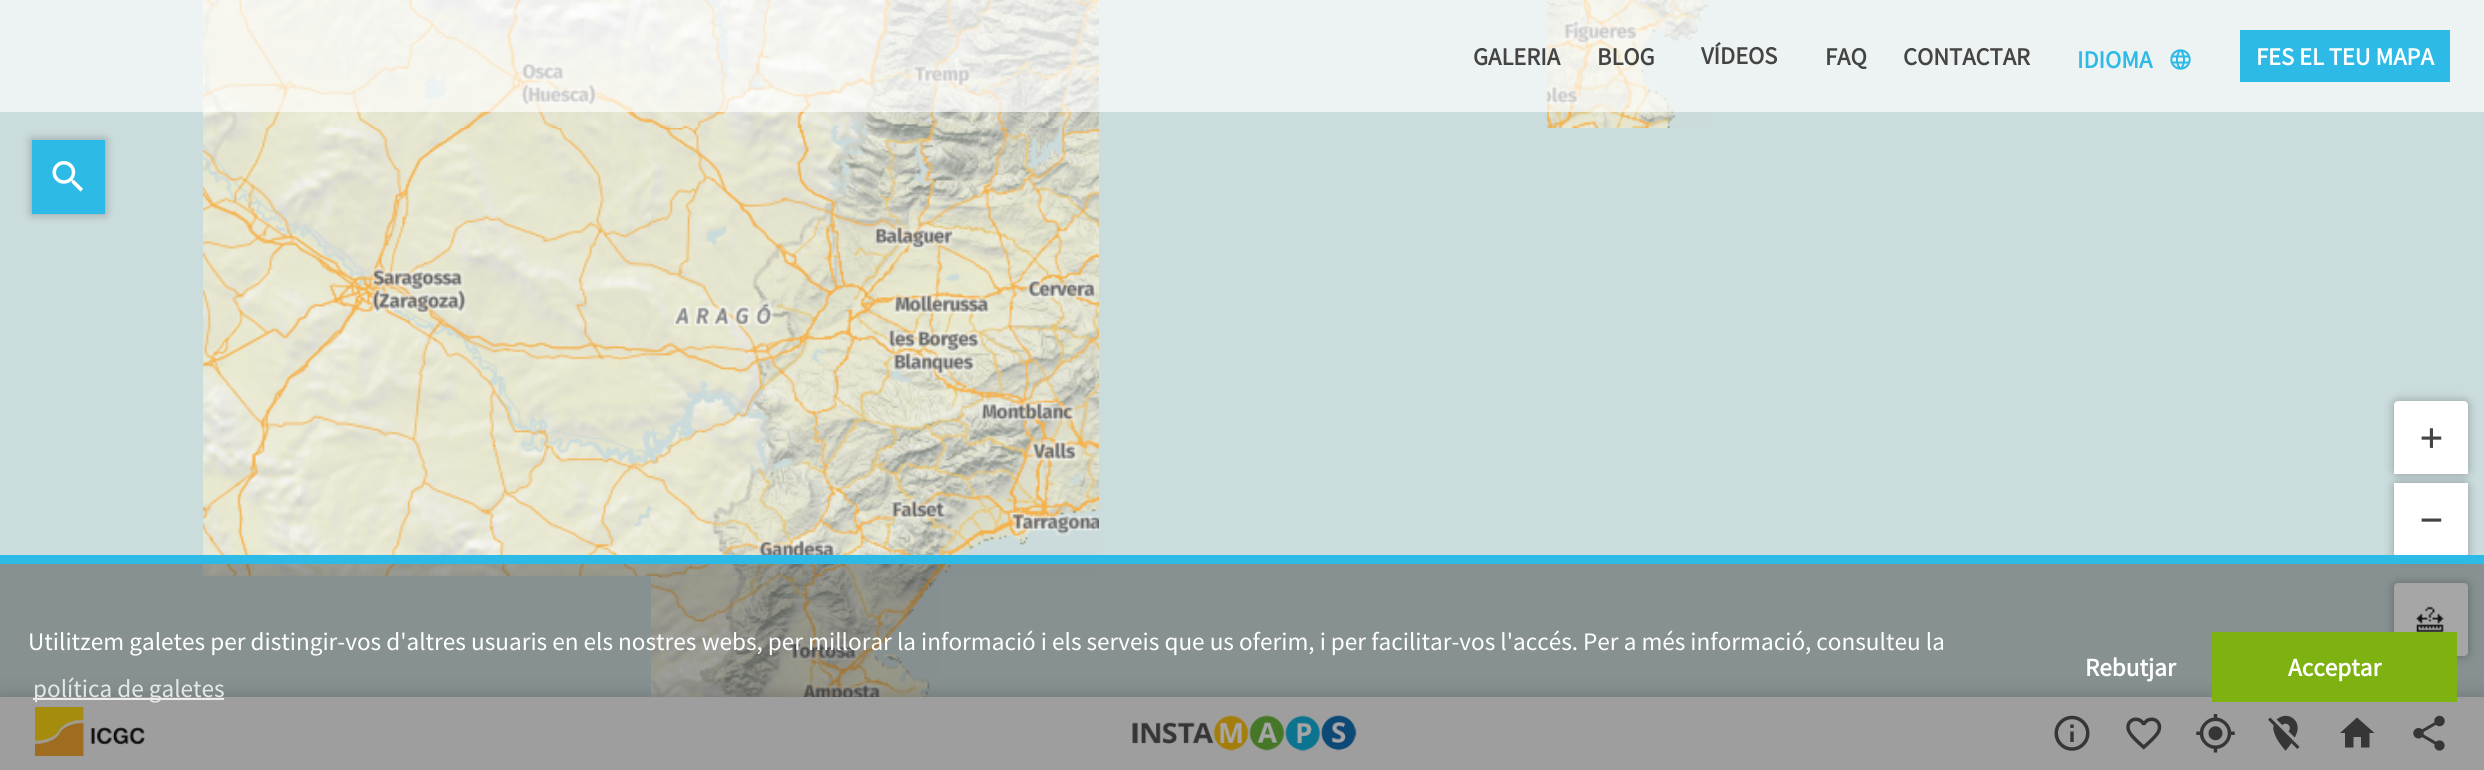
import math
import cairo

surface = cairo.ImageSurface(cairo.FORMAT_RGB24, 2484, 770)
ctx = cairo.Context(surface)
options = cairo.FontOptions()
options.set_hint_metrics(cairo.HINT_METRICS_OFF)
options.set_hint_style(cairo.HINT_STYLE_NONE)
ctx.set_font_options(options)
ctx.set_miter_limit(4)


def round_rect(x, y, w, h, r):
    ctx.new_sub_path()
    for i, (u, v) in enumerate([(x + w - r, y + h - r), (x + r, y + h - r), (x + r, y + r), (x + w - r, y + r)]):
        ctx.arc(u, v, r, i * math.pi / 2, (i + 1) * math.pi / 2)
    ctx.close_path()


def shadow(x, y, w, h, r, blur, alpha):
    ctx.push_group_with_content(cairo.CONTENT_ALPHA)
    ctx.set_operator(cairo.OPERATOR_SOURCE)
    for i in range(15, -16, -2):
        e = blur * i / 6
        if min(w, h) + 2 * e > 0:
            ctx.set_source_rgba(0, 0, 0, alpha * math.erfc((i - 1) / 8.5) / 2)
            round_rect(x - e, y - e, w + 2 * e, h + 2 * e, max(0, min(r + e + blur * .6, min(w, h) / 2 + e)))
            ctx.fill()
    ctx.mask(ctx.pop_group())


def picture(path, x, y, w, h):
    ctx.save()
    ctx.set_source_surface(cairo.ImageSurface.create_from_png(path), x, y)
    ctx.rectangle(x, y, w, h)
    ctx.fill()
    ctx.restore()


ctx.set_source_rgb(0.796, 0.863, 0.863)
ctx.paint()
picture("img10.png", 203, 0, 448, 128)
picture("img11.png", 651, 0, 448, 128)
picture("img12.png", 1547, 0, 162, 128)
ctx.set_source_rgba(1, 1, 1, 0.65)
ctx.rectangle(0, 0, 2484, 112)
ctx.fill()
ctx.select_font_face("Source Sans Pro", cairo.FONT_SLANT_NORMAL, cairo.FONT_WEIGHT_BOLD)
ctx.set_font_size(24.5)
ctx.set_source_rgb(0.267, 0.267, 0.267)
ctx.move_to(1473, 65)
ctx.show_text("GALERIA")
ctx.move_to(1597, 65)
ctx.show_text("BLOG")
ctx.move_to(1701, 64)
ctx.show_text("VÍDEOS")
ctx.move_to(1825, 65)
ctx.show_text("FAQ")
ctx.move_to(1903, 65)
ctx.show_text("CONTACTAR")
ctx.set_source_rgb(0.18, 0.729, 0.902)
ctx.move_to(2077, 68)
ctx.show_text("IDIOMA")
picture("img1.png", 2170, 49, 21, 21)
ctx.rectangle(2240, 30, 210, 52)
ctx.fill()
ctx.set_source_rgb(1, 1, 1)
ctx.move_to(2256, 65)
ctx.show_text("FES EL TEU MAPA")
ctx.set_source_rgb(0, 0, 0)
shadow(32, 140, 73, 74, 0, 5, 0.3)
ctx.set_source_rgb(0.18, 0.729, 0.902)
ctx.rectangle(32, 140, 73, 74)
ctx.fill()
picture("img2.png", 52, 161, 31, 31)
picture("img15.png", 651, 576, 289, 121)
ctx.set_source_rgb(0, 0, 0)
shadow(0, 695, 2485, 73, 0, 9, 0.18)
ctx.set_source_rgb(0.945, 0.945, 0.945)
ctx.rectangle(0, 697, 2484, 73)
ctx.fill()
picture("img3.png", 2054, 715, 36, 36)
picture("img4.png", 2126, 717, 36, 33)
picture("img5.png", 2196, 714, 39, 39)
picture("img6.png", 2268, 715, 32, 36)
ctx.set_source_rgb(0.267, 0.267, 0.267)
ctx.new_path()
ctx.move_to(2353.5, 747.5)
ctx.line_to(2345, 747.5)
ctx.line_to(2345, 733)
ctx.line_to(2340, 733)
ctx.line_to(2357, 717.5)
ctx.line_to(2374.5, 733)
ctx.line_to(2369.5, 733)
ctx.line_to(2369.5, 747.5)
ctx.line_to(2361, 747.5)
ctx.line_to(2361, 737)
ctx.line_to(2353.5, 737)
ctx.close_path()
ctx.fill()
picture("img7.png", 2413, 715, 32, 36)
picture("img8.png", 35, 707, 110, 49)
picture("img9.png", 1132, 715, 225, 36)
picture("img13.png", 203, 128, 448, 448)
picture("img14.png", 651, 128, 448, 448)
ctx.set_source_rgb(0, 0, 0)
shadow(2394, 401, 74, 73, 4, 5, 0.3)
ctx.set_source_rgb(1, 1, 1)
ctx.new_path()
ctx.move_to(2398, 401)
ctx.line_to(2464, 401)
ctx.curve_to(2466, 401, 2468, 403, 2468, 405)
ctx.line_to(2468, 474)
ctx.line_to(2394, 474)
ctx.line_to(2394, 405)
ctx.curve_to(2394, 403, 2396, 401, 2398, 401)
ctx.close_path()
ctx.fill()
ctx.select_font_face("DejaVu Sans Mono")
ctx.set_font_size(38)
ctx.set_source_rgb(0.267, 0.267, 0.267)
ctx.move_to(2420, 450)
ctx.show_text("+")
ctx.set_source_rgb(0, 0, 0)
shadow(2394, 483, 74, 74, 4, 5, 0.3)
ctx.set_source_rgb(1, 1, 1)
ctx.new_path()
ctx.move_to(2394, 483)
ctx.line_to(2468, 483)
ctx.line_to(2468, 553)
ctx.curve_to(2468, 555, 2466, 557, 2464, 557)
ctx.line_to(2398, 557)
ctx.curve_to(2396, 557, 2394, 555, 2394, 553)
ctx.close_path()
ctx.fill()
ctx.set_source_rgb(0.267, 0.267, 0.267)
ctx.move_to(2420, 532)
ctx.show_text("−")
ctx.set_source_rgb(0, 0, 0)
shadow(2394, 583, 74, 73, 4, 5, 0.3)
ctx.set_source_rgb(1, 1, 1)
round_rect(2394, 583, 74, 73, 4)
ctx.fill()
picture("img16.png", 2416, 606, 28, 26)
ctx.set_source_rgba(0.133, 0.133, 0.133, 0.4)
ctx.rectangle(0, 564, 2484, 206)
ctx.fill()
ctx.set_source_rgb(0.18, 0.729, 0.902)
ctx.rectangle(0, 555, 2484, 9)
ctx.fill()
ctx.select_font_face("Source Sans Pro")
ctx.set_font_size(25.2)
ctx.set_source_rgb(1, 1, 1)
ctx.move_to(28, 650)
ctx.show_text("Utilitzem galetes per distingir-vos d'altres usuaris en els nostres webs, per millorar la informació i els serveis que us oferim, i per facilitar-vos l'accés. Per a més informació, consulteu la")
ctx.set_source_rgb(0.925, 0.925, 0.925)
ctx.rectangle(33, 698, 191, 2)
ctx.fill()
ctx.set_source_rgb(0.902, 0.91, 0.91)
ctx.move_to(33, 697)
ctx.show_text("política de galetes")
ctx.select_font_face("Source Sans Pro", cairo.FONT_SLANT_NORMAL, cairo.FONT_WEIGHT_BOLD)
ctx.set_source_rgb(1, 1, 1)
ctx.move_to(2085, 676)
ctx.show_text("Rebutjar")
ctx.set_source_rgb(0.494, 0.698, 0.063)
ctx.rectangle(2212, 632, 245, 70)
ctx.fill()
ctx.set_source_rgb(1, 1, 1)
ctx.move_to(2288, 676)
ctx.show_text("Acceptar")
surface.write_to_png("page.png")
